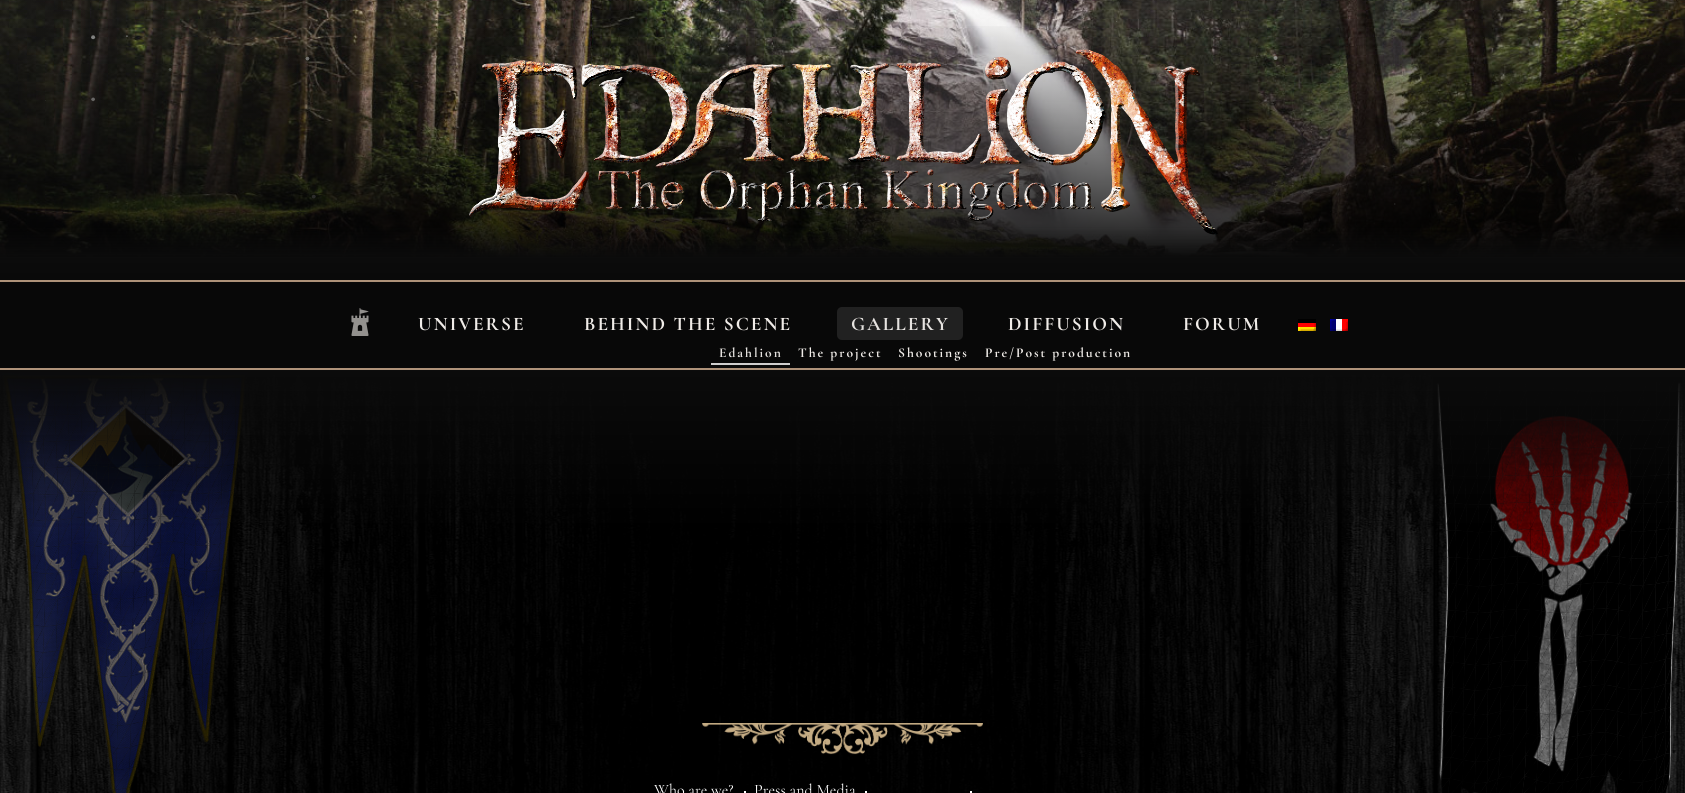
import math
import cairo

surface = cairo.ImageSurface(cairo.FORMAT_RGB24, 1685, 793)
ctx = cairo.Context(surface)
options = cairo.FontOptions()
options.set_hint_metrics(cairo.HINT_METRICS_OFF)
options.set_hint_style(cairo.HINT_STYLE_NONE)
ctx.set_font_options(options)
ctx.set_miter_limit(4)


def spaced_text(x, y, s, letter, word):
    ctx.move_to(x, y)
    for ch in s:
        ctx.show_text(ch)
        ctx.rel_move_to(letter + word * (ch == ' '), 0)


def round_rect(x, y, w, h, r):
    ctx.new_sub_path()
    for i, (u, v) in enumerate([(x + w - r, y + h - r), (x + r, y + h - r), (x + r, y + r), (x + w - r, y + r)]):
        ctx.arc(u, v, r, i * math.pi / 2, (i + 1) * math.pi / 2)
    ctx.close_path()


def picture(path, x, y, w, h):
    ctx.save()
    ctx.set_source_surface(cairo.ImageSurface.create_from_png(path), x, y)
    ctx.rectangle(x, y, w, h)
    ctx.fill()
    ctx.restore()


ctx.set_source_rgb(1, 1, 1)
ctx.paint()
picture("img1.png", 0, 371, 1685, 422)
picture("img2.png", 0, 0, 1685, 257)
picture("img3.png", 45, 13, 1634, 240)
gradient = cairo.LinearGradient(843, 370, 843, 20)
gradient.add_color_stop_rgba(0.23, 0.031, 0.031, 0.031, 1)
gradient.add_color_stop_rgba(0.32, 0.043, 0.043, 0.043, 1)
gradient.add_color_stop_rgba(0.41, 0, 0, 0, 0.78)
gradient.add_color_stop_rgba(1, 0, 0, 0, 0)
ctx.set_source(gradient)
ctx.rectangle(0, 26, 1685, 342)
ctx.fill()
picture("img4.png", 469, 49, 749, 186)
ctx.set_source_rgb(0.682, 0.573, 0.475)
ctx.rectangle(0, 280, 1685, 2)
ctx.fill()
ctx.rectangle(0, 368, 1685, 2)
ctx.fill()
picture("img5.png", 351, 308, 18, 28)
ctx.select_font_face("Cormorant Garamond", cairo.FONT_SLANT_NORMAL, cairo.FONT_WEIGHT_BOLD)
ctx.set_font_size(19.25)
ctx.set_source_rgb(0.941, 0.925, 0.91)
spaced_text(418, 330, "UNIVERSE", 2, 0)
spaced_text(584, 330, "BEHIND THE SCENE", 2, 0)
ctx.set_source_rgb(0.129, 0.129, 0.129)
round_rect(837, 307, 126, 33, 5)
ctx.fill()
ctx.set_source_rgb(0.902, 0.89, 0.878)
spaced_text(851, 330, "GALLERY", 2, 0)
ctx.set_source_rgb(0.808, 0.808, 0.808)
ctx.rectangle(711, 363, 79, 2)
ctx.fill()
ctx.set_font_size(13.5)
ctx.set_source_rgb(0.902, 0.89, 0.878)
spaced_text(719, 357, "Edahlion", 2, 0)
ctx.set_source_rgb(0.941, 0.925, 0.91)
spaced_text(798, 357, "The project", 2, 0)
spaced_text(898, 357, "Shootings", 2, 0)
spaced_text(985, 357, "Pre/Post production", 2, 0)
ctx.set_font_size(19.25)
spaced_text(1008, 330, "DIFFUSION", 2, 0)
spaced_text(1183, 330, "FORUM", 2, 0)
picture("img6.png", 1298, 319, 18, 12)
picture("img7.png", 1330, 319, 18, 12)
picture("img8.png", 0, 371, 248, 422)
picture("img9.png", 1436, 371, 247, 422)
gradient = cairo.LinearGradient(843, 370, 843, 530)
gradient.add_color_stop_rgba(0, 0.043, 0.043, 0.043, 1)
gradient.add_color_stop_rgba(1, 0.043, 0.043, 0.043, 0)
ctx.set_source(gradient)
ctx.rectangle(0, 370, 1685, 157)
ctx.fill()
picture("img10.png", 702, 723, 281, 32)
ctx.select_font_face("Cormorant Garamond")
ctx.set_font_size(16)
ctx.set_source_rgb(1, 1, 1)
ctx.move_to(654, 795)
ctx.show_text("Who are we?")
ctx.rectangle(744, 791, 2, 2)
ctx.fill()
ctx.move_to(754, 795)
ctx.show_text("Press and Media")
ctx.rectangle(865, 791, 2, 2)
ctx.fill()
ctx.rectangle(970, 791, 2, 2)
ctx.fill()
surface.write_to_png("page.png")
